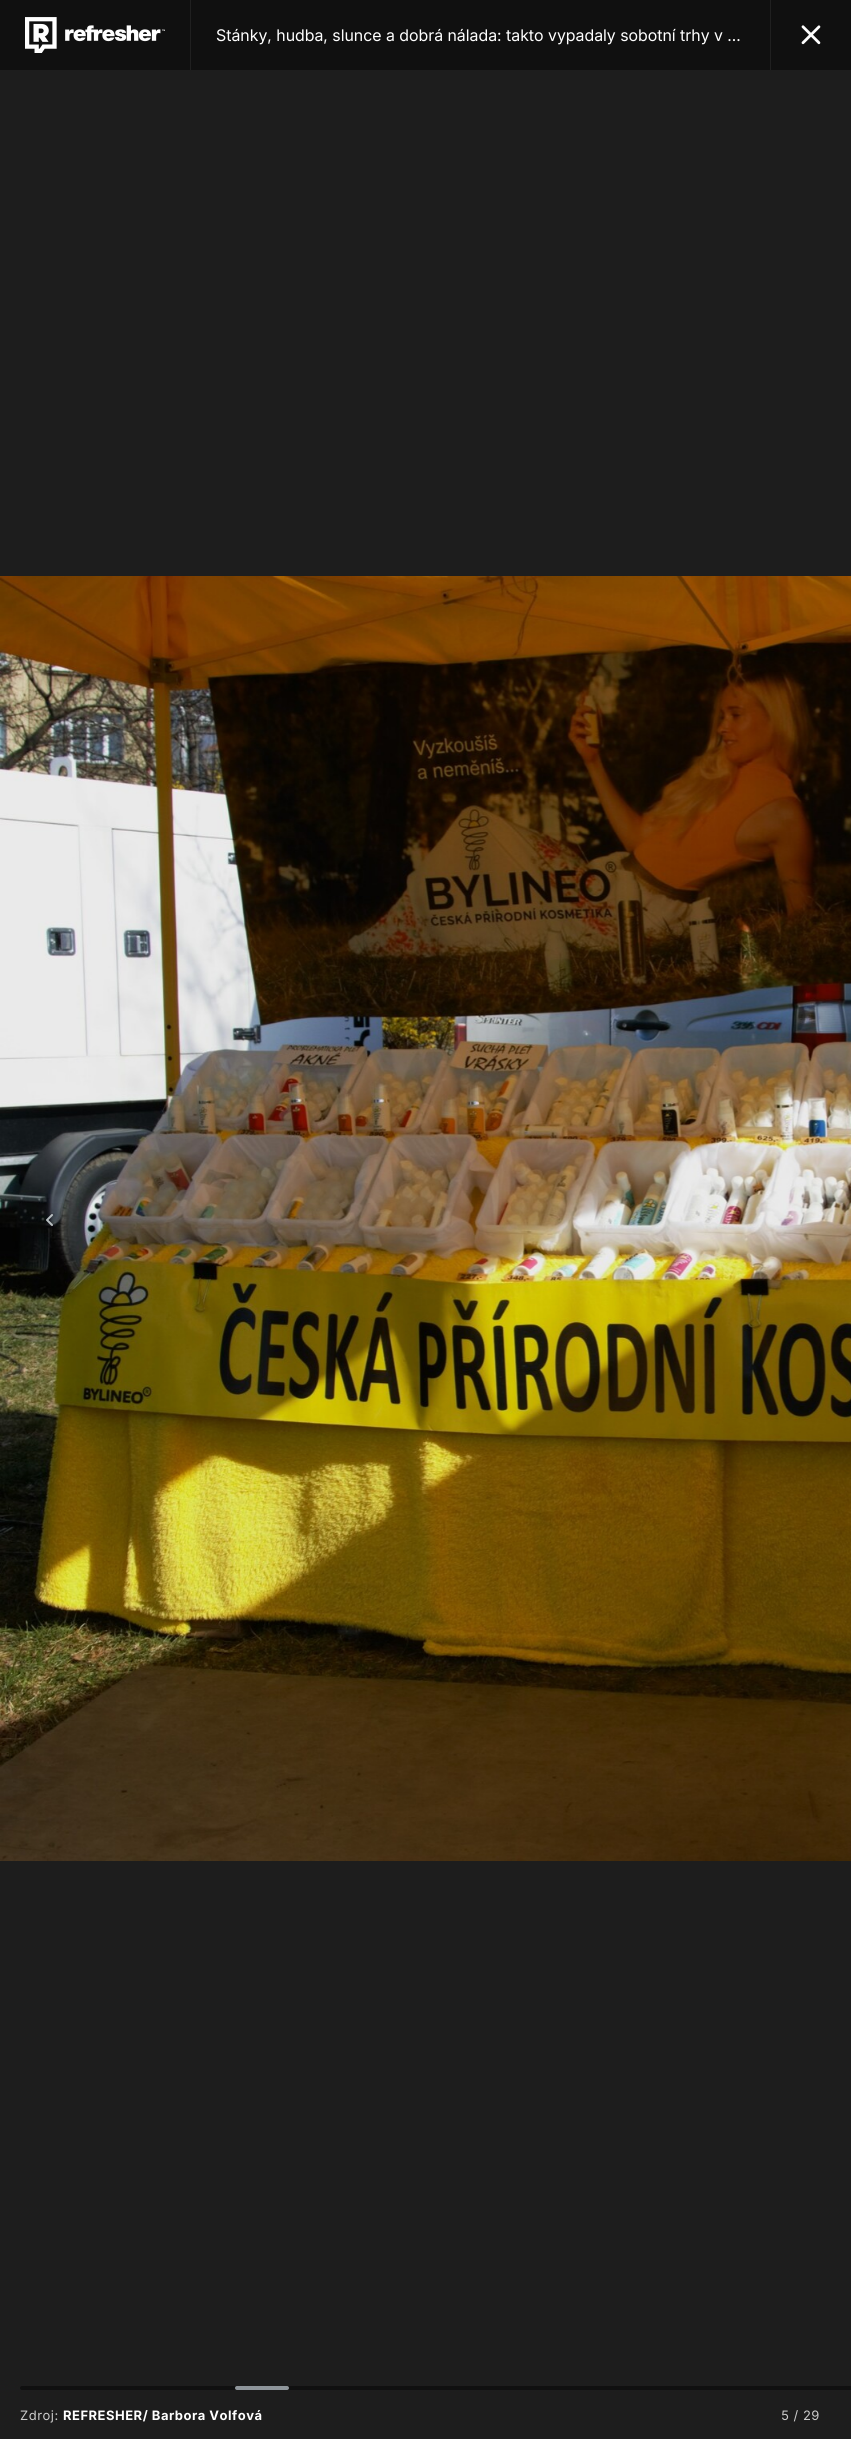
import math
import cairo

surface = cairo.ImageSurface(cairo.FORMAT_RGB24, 851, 2439)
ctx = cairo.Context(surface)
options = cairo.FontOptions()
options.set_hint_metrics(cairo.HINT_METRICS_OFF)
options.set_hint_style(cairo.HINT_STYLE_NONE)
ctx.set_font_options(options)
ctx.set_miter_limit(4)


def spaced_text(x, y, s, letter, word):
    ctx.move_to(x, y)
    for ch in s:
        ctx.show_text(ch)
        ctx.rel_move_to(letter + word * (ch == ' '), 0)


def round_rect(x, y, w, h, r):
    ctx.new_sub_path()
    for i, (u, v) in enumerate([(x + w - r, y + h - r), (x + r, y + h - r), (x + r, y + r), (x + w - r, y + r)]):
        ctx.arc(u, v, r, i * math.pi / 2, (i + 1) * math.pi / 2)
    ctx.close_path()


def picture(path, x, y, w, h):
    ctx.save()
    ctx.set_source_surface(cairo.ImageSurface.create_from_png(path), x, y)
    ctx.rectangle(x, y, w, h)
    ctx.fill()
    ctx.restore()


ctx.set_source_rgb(0.114, 0.114, 0.114)
ctx.paint()
ctx.set_source_rgb(0.063, 0.063, 0.063)
ctx.rectangle(0, 0, 851, 70)
ctx.fill()
picture("img1.png", 25, 17, 140, 36)
ctx.set_source_rgb(0.125, 0.125, 0.125)
ctx.rectangle(190, 0, 1, 70)
ctx.fill()
ctx.select_font_face("Inter")
ctx.set_font_size(16)
ctx.set_source_rgb(1, 1, 1)
ctx.move_to(216, 41)
ctx.show_text("Stánky, hudba, slunce a dobrá nálada: takto vypadaly sobotní trhy v …")
picture("img2.png", 801, 25, 20, 20)
ctx.set_source_rgb(0.125, 0.125, 0.125)
ctx.rectangle(770, 0, 1, 70)
ctx.fill()
picture("img3.png", 0, 576, 851, 1285)
picture("img4.png", 46, 1213, 9, 13)
ctx.set_source_rgb(0.063, 0.063, 0.063)
round_rect(20, 2386, 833, 4, 2)
ctx.fill()
ctx.set_source_rgb(0.557, 0.584, 0.604)
round_rect(235, 2386, 54, 4, 2)
ctx.fill()
ctx.select_font_face("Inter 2")
ctx.set_font_size(13)
ctx.set_source_rgb(0.8, 0.8, 0.8)
spaced_text(20, 2420, "Zdroj:", 0.5, 0)
ctx.select_font_face("Inter", cairo.FONT_SLANT_NORMAL, cairo.FONT_WEIGHT_BOLD)
ctx.set_source_rgb(1, 1, 1)
spaced_text(63, 2420, "REFRESHER/ Barbora Volfová", 0.5, 0)
ctx.select_font_face("Inter 2")
ctx.set_source_rgb(0.8, 0.8, 0.8)
spaced_text(781, 2420, "5 / 29", 0.5, 0)
surface.write_to_png("page.png")
